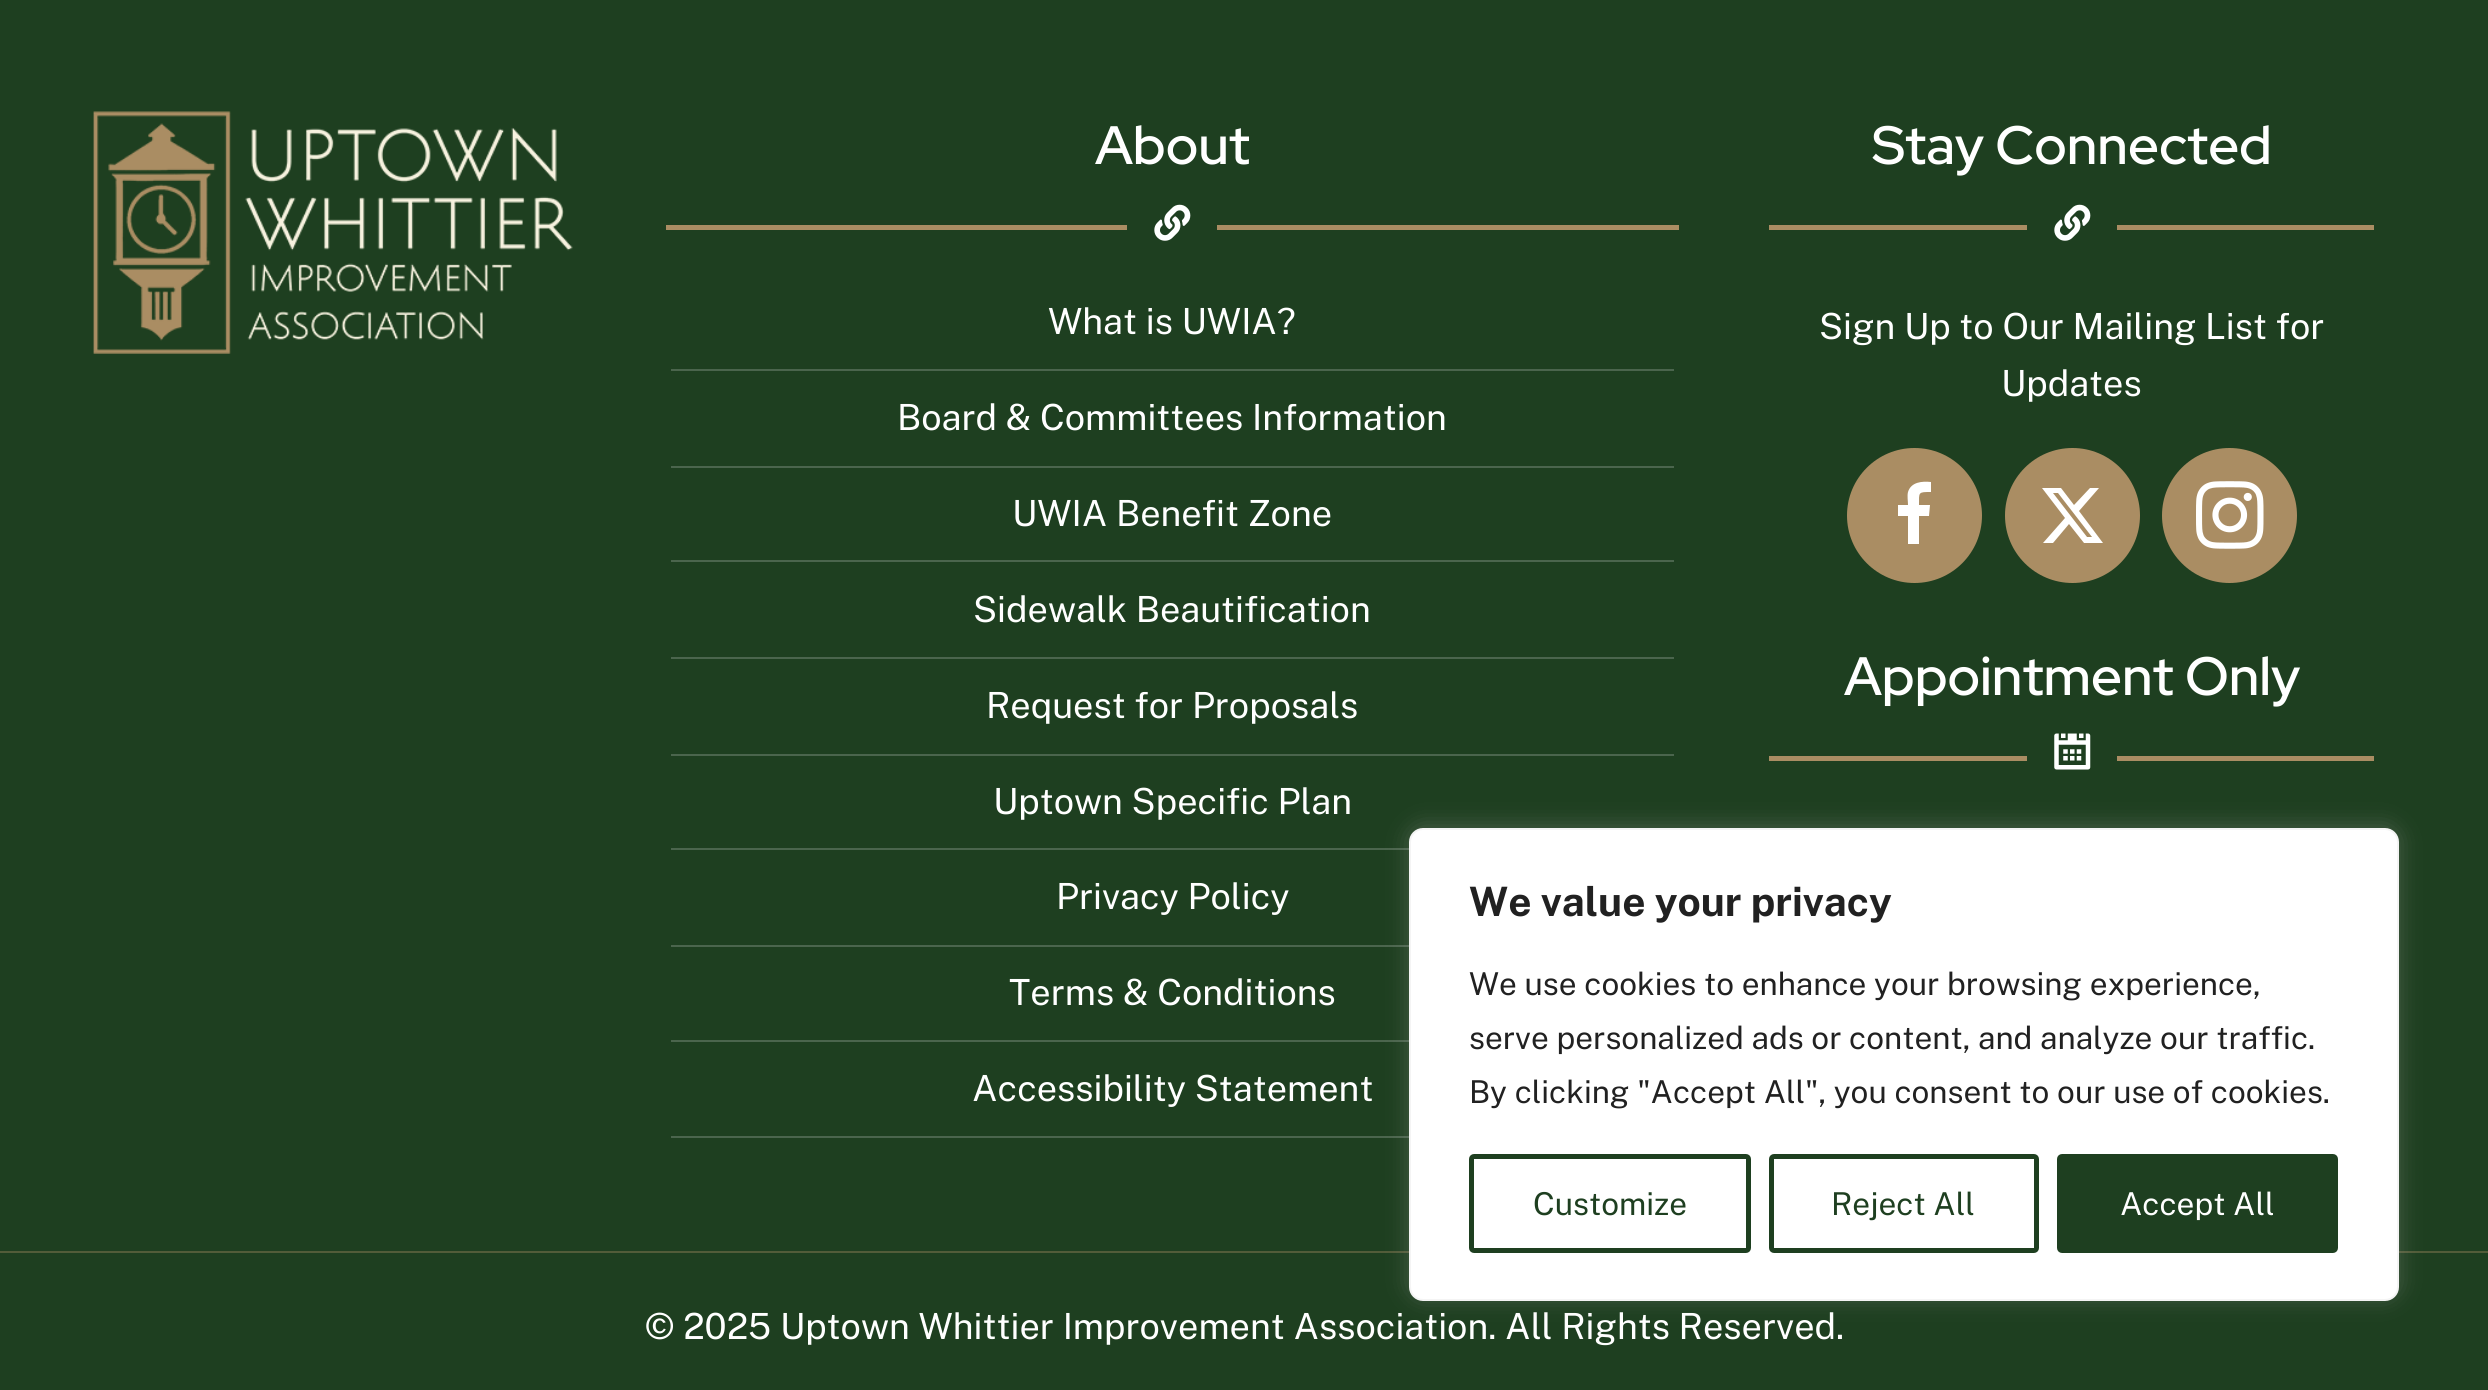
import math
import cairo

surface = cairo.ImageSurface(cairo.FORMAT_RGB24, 2488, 1390)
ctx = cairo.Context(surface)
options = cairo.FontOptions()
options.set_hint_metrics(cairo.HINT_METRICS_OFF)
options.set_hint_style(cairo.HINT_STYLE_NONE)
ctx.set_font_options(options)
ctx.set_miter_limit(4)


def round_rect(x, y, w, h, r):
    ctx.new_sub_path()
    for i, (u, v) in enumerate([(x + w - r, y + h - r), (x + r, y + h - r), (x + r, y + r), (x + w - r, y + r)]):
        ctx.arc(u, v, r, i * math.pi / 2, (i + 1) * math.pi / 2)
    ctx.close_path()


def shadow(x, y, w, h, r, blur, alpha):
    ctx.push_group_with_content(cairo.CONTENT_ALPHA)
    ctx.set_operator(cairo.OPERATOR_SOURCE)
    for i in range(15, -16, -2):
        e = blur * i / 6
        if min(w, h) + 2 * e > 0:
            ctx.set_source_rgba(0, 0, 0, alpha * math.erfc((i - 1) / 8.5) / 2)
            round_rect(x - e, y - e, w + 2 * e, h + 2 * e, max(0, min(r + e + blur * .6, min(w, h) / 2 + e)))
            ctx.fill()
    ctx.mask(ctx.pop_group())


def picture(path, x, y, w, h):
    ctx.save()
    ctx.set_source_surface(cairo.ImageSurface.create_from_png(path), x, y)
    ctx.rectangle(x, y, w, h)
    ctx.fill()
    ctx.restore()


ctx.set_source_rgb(0.118, 0.247, 0.125)
ctx.paint()
ctx.set_source_rgb(0.322, 0.361, 0.224)
ctx.rectangle(0, 1251, 2488, 2)
ctx.fill()
picture("img1.png", 93, 111, 480, 243)
ctx.select_font_face("Red Hat Display SemiBold")
ctx.set_font_size(54)
ctx.set_source_rgb(1, 1, 1)
ctx.move_to(1095, 164)
ctx.show_text("About")
ctx.set_source_rgb(0.667, 0.553, 0.388)
ctx.rectangle(666, 225, 461, 5)
ctx.fill()
picture("img2.png", 1154, 204, 37, 37)
ctx.rectangle(1217, 225, 462, 5)
ctx.fill()
ctx.set_source_rgb(0.294, 0.396, 0.302)
ctx.rectangle(671, 369, 1003, 2)
ctx.fill()
ctx.select_font_face("Public Sans")
ctx.set_font_size(36)
ctx.set_source_rgb(1, 1, 1)
ctx.move_to(1048, 334)
ctx.show_text("What is UWIA?")
ctx.set_source_rgb(0.294, 0.396, 0.302)
ctx.rectangle(671, 466, 1003, 2)
ctx.fill()
ctx.set_source_rgb(1, 1, 1)
ctx.move_to(897, 430)
ctx.show_text("Board & Committees Information")
ctx.set_source_rgb(0.294, 0.396, 0.302)
ctx.rectangle(671, 560, 1003, 2)
ctx.fill()
ctx.set_source_rgb(1, 1, 1)
ctx.move_to(1012, 526)
ctx.show_text("UWIA Benefit Zone")
ctx.set_source_rgb(0.294, 0.396, 0.302)
ctx.rectangle(671, 657, 1003, 2)
ctx.fill()
ctx.set_source_rgb(1, 1, 1)
ctx.move_to(973, 622)
ctx.show_text("Sidewalk Beautification")
ctx.set_source_rgb(0.294, 0.396, 0.302)
ctx.rectangle(671, 754, 1003, 2)
ctx.fill()
ctx.set_source_rgb(1, 1, 1)
ctx.move_to(986, 718)
ctx.show_text("Request for Proposals")
ctx.set_source_rgb(0.294, 0.396, 0.302)
ctx.rectangle(671, 848, 738, 2)
ctx.fill()
ctx.set_source_rgb(1, 1, 1)
ctx.move_to(993, 814)
ctx.show_text("Uptown Specific Plan")
ctx.set_source_rgb(0.294, 0.396, 0.302)
ctx.rectangle(671, 945, 738, 2)
ctx.fill()
ctx.set_source_rgb(1, 1, 1)
ctx.move_to(1056, 909)
ctx.show_text("Privacy Policy")
ctx.set_source_rgb(0.294, 0.396, 0.302)
ctx.rectangle(671, 1040, 738, 2)
ctx.fill()
ctx.set_source_rgb(1, 1, 1)
ctx.move_to(1009, 1005)
ctx.show_text("Terms & Conditions")
ctx.set_source_rgb(0.294, 0.396, 0.302)
ctx.rectangle(671, 1136, 738, 2)
ctx.fill()
ctx.set_source_rgb(1, 1, 1)
ctx.move_to(972, 1101)
ctx.show_text("Accessibility Statement")
ctx.select_font_face("Red Hat Display SemiBold")
ctx.set_font_size(54)
ctx.move_to(1872, 164)
ctx.show_text("Stay Connected")
ctx.set_source_rgb(0.667, 0.553, 0.388)
ctx.rectangle(1769, 225, 258, 5)
ctx.fill()
picture("img2.png", 2054, 204, 37, 37)
ctx.rectangle(2117, 225, 257, 5)
ctx.fill()
ctx.select_font_face("Public Sans")
ctx.set_font_size(36)
ctx.set_source_rgb(1, 1, 1)
ctx.move_to(1819, 339)
ctx.show_text("Sign Up to Our Mailing List for")
ctx.move_to(2001, 396)
ctx.show_text("Updates")
ctx.set_source_rgb(0.667, 0.553, 0.388)
ctx.new_path()
ctx.arc(1914.5, 515.5, 67.5, 0, 2 * math.pi)
ctx.fill()
ctx.set_source_rgb(1, 1, 1)
ctx.new_path()
ctx.move_to(1931, 482)
ctx.line_to(1931, 492)
ctx.curve_to(1918, 492, 1919, 492, 1919, 505)
ctx.line_to(1930, 505)
ctx.line_to(1929, 516)
ctx.line_to(1919, 516)
ctx.line_to(1919, 544)
ctx.line_to(1908, 544)
ctx.line_to(1908, 516)
ctx.line_to(1898, 516)
ctx.line_to(1898, 505)
ctx.line_to(1908, 505)
ctx.curve_to(1908, 501, 1907, 496, 1908, 492)
ctx.curve_to(1911, 482, 1922, 481, 1931, 482)
ctx.close_path()
ctx.fill()
ctx.set_source_rgb(0.667, 0.553, 0.388)
ctx.arc(2072.5, 515.5, 67.5, 0, 2 * math.pi)
ctx.fill()
ctx.set_source_rgb(1, 1, 1)
ctx.new_path()
ctx.move_to(2090, 488)
ctx.line_to(2099, 488)
ctx.line_to(2079, 511)
ctx.line_to(2103, 543)
ctx.line_to(2084, 543)
ctx.line_to(2069, 524)
ctx.line_to(2053, 543)
ctx.line_to(2043, 543)
ctx.line_to(2065, 518)
ctx.line_to(2042, 488)
ctx.line_to(2061, 488)
ctx.line_to(2074, 505)
ctx.close_path()
ctx.move_to(2087, 537)
ctx.line_to(2092, 537)
ctx.line_to(2058, 493)
ctx.line_to(2053, 493)
ctx.close_path()
ctx.fill()
ctx.set_source_rgb(0.667, 0.553, 0.388)
ctx.arc(2229.5, 515.5, 67.5, 0, 2 * math.pi)
ctx.fill()
picture("img3.png", 2196, 481, 68, 68)
ctx.select_font_face("Red Hat Display SemiBold")
ctx.set_font_size(54)
ctx.set_source_rgb(1, 1, 1)
ctx.move_to(1844, 695)
ctx.show_text("Appointment Only")
ctx.set_source_rgb(0.667, 0.553, 0.388)
ctx.rectangle(1769, 756, 258, 5)
ctx.fill()
picture("img4.png", 2054, 733, 37, 37)
ctx.rectangle(2117, 756, 257, 5)
ctx.fill()
ctx.select_font_face("Public Sans")
ctx.set_font_size(36)
ctx.set_source_rgb(1, 1, 1)
ctx.move_to(645, 1339)
ctx.show_text("© 2025 Uptown Whittier Improvement Association. All Rights Reserved.")
ctx.set_source_rgb(0.675, 0.671, 0.671)
shadow(1409, 826, 990, 472, 14, 11, 0.3)
ctx.set_source_rgb(1, 1, 1)
round_rect(1410, 829, 988, 471, 13)
ctx.fill_preserve()
ctx.set_source_rgb(0.957, 0.957, 0.957)
ctx.stroke()
ctx.select_font_face("Public Sans", cairo.FONT_SLANT_NORMAL, cairo.FONT_WEIGHT_BOLD)
ctx.set_font_size(40.5)
ctx.set_source_rgb(0.129, 0.129, 0.129)
ctx.move_to(1469, 916)
ctx.show_text("We value your privacy")
ctx.select_font_face("Public Sans")
ctx.set_font_size(31.5)
ctx.move_to(1469, 995)
ctx.show_text("We use cookies to enhance your browsing experience,")
ctx.move_to(1469, 1049)
ctx.show_text("serve personalized ads or content, and analyze our traffic.")
ctx.move_to(1469, 1103)
ctx.show_text("By clicking \"Accept All\", you consent to our use of cookies.")
round_rect(1471.5, 1156.5, 277, 94, 2.5)
ctx.set_source_rgb(0.118, 0.247, 0.125)
ctx.set_line_width(5)
ctx.stroke()
ctx.move_to(1533, 1215)
ctx.show_text("Customize")
round_rect(1771.5, 1156.5, 265, 94, 2.5)
ctx.stroke()
ctx.move_to(1831, 1215)
ctx.show_text("Reject All")
round_rect(2059.5, 1156.5, 276, 94, 2.5)
ctx.fill_preserve()
ctx.stroke()
ctx.set_source_rgb(1, 1, 1)
ctx.move_to(2120, 1215)
ctx.show_text("Accept All")
surface.write_to_png("page.png")
